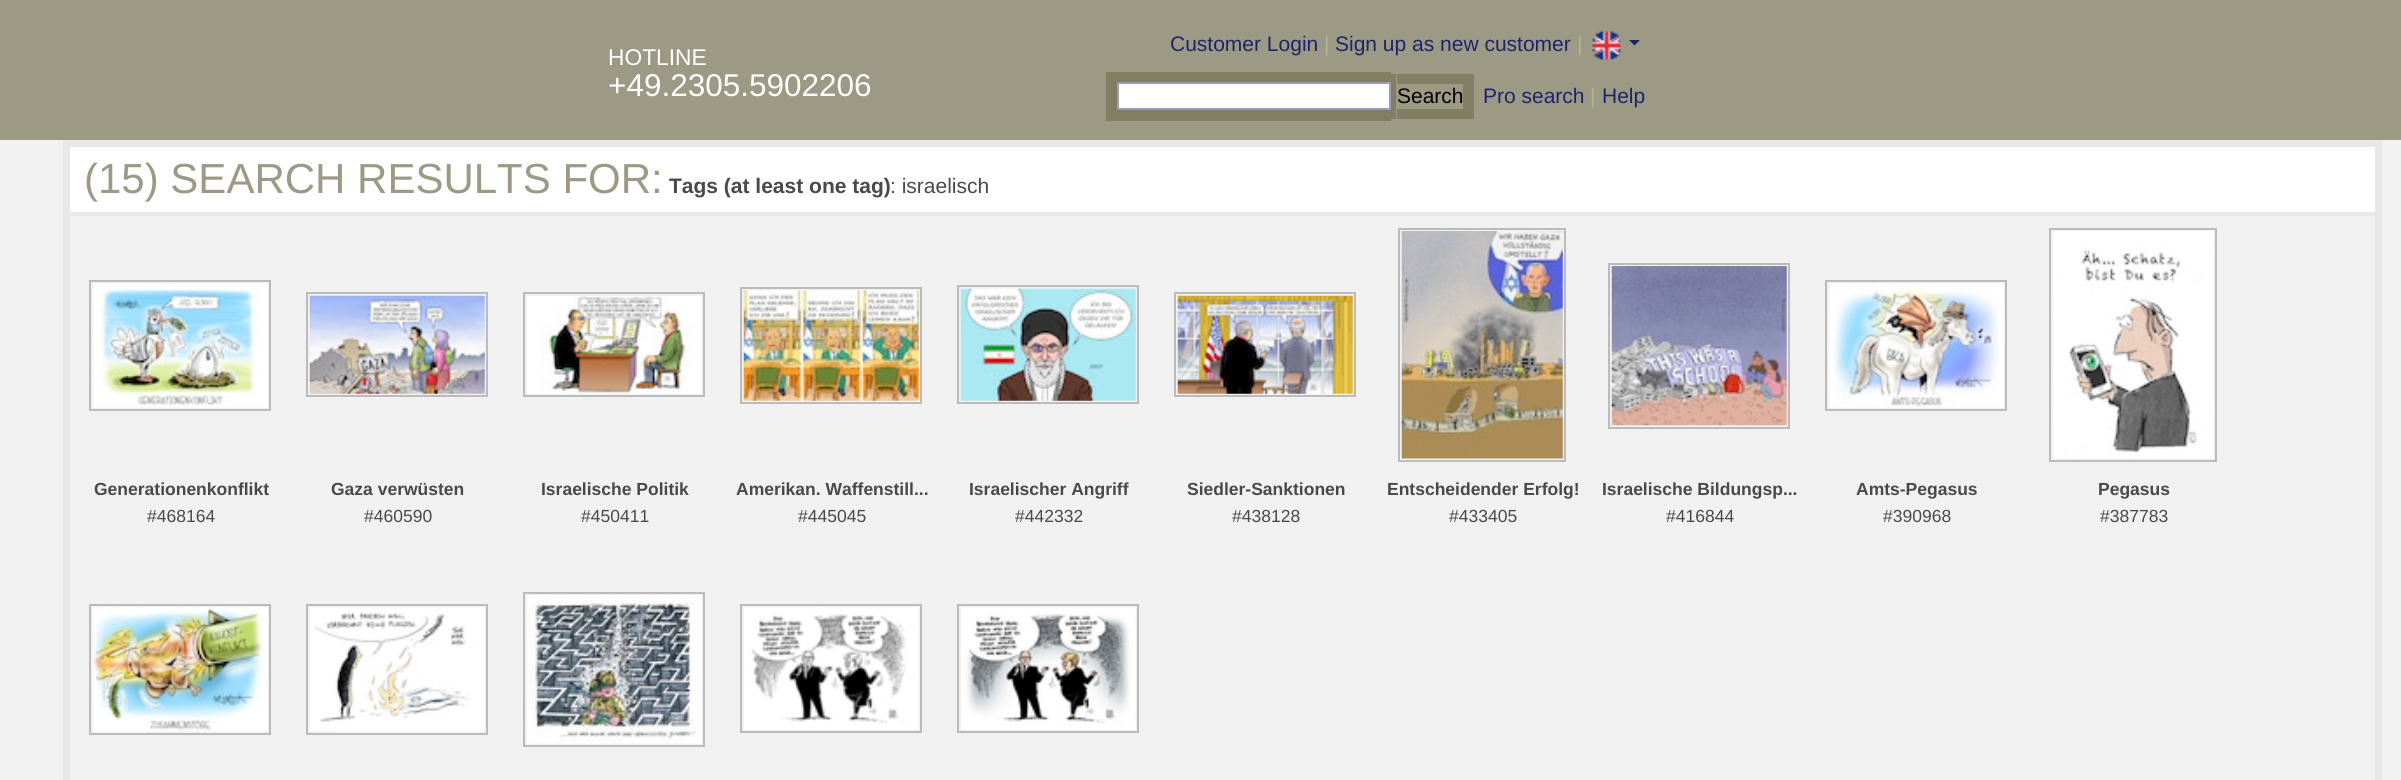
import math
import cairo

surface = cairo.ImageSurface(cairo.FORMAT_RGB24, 2401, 780)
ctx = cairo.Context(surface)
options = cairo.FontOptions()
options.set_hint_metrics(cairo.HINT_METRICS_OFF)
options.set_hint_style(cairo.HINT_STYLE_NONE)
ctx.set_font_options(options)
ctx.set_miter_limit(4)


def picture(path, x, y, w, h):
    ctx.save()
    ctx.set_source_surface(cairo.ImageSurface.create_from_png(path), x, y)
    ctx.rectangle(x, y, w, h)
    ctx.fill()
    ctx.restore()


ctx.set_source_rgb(0.945, 0.945, 0.945)
ctx.paint()
ctx.set_source_rgb(0.612, 0.6, 0.518)
ctx.rectangle(0, 0, 2401, 140)
ctx.fill()
ctx.select_font_face("Liberation Sans")
ctx.set_font_size(21)
ctx.set_source_rgb(0.114, 0.141, 0.424)
ctx.move_to(1170, 51)
ctx.show_text("Customer Login")
ctx.set_source_rgb(0.71, 0.698, 0.608)
ctx.move_to(1324, 51)
ctx.show_text("|")
ctx.set_source_rgb(0.114, 0.141, 0.424)
ctx.move_to(1335, 51)
ctx.show_text("Sign up as new customer")
ctx.set_source_rgb(0.71, 0.698, 0.608)
ctx.move_to(1577, 51)
ctx.show_text("|")
picture("img1.png", 1592, 31, 29, 29)
ctx.set_source_rgb(0.114, 0.141, 0.424)
ctx.new_path()
ctx.move_to(1629, 40)
ctx.line_to(1640, 40)
ctx.line_to(1634.5, 45.5)
ctx.close_path()
ctx.fill()
ctx.set_font_size(22.75)
ctx.set_source_rgb(1, 1, 1)
ctx.move_to(608, 65)
ctx.show_text("HOTLINE")
ctx.set_font_size(31.5)
ctx.move_to(608, 96)
ctx.show_text("+49.2305.5902206")
ctx.set_source_rgb(0.51, 0.494, 0.388)
ctx.rectangle(1106, 72, 285, 49)
ctx.fill()
ctx.rectangle(1391, 74, 5, 45)
ctx.fill()
ctx.rectangle(1397, 74, 77, 45)
ctx.fill()
ctx.set_source_rgb(1, 1, 1)
ctx.rectangle(1118, 83, 272, 26)
ctx.fill_preserve()
ctx.set_source_rgb(0.6, 0.612, 0.733)
ctx.stroke()
ctx.set_source_rgb(0.612, 0.6, 0.518)
ctx.rectangle(1397, 84, 66, 25)
ctx.fill()
ctx.set_font_size(21)
ctx.set_source_rgb(0, 0, 0)
ctx.move_to(1397, 103)
ctx.show_text("Search")
ctx.set_source_rgb(0.114, 0.141, 0.424)
ctx.move_to(1483, 103)
ctx.show_text("Pro search")
ctx.set_source_rgb(0.71, 0.698, 0.608)
ctx.move_to(1590, 103)
ctx.show_text("|")
ctx.set_source_rgb(0.114, 0.141, 0.424)
ctx.move_to(1602, 103)
ctx.show_text("Help")
ctx.rectangle(66.5, 143.5, 2312, 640)
ctx.set_source_rgb(0.91, 0.91, 0.91)
ctx.set_line_width(7)
ctx.stroke()
ctx.set_source_rgb(1, 1, 1)
ctx.rectangle(70, 147, 2305, 65)
ctx.fill()
ctx.set_font_size(42)
ctx.set_source_rgb(0.612, 0.6, 0.518)
ctx.move_to(84, 193)
ctx.show_text("(15) SEARCH RESULTS FOR:")
ctx.select_font_face("Liberation Sans", cairo.FONT_SLANT_NORMAL, cairo.FONT_WEIGHT_BOLD)
ctx.set_font_size(21)
ctx.set_source_rgb(0.286, 0.286, 0.286)
ctx.move_to(669, 193)
ctx.show_text("Tags (at least one tag)")
ctx.select_font_face("Liberation Sans")
ctx.move_to(890, 193)
ctx.show_text(": israelisch")
ctx.set_source_rgb(0.91, 0.91, 0.91)
ctx.rectangle(70, 212, 2305, 4)
ctx.fill()
ctx.rectangle(90, 281, 180, 129)
ctx.set_source_rgb(0.733, 0.733, 0.733)
ctx.set_line_width(2)
ctx.stroke()
picture("img2.png", 93, 283, 175, 125)
ctx.select_font_face("Liberation Sans", cairo.FONT_SLANT_NORMAL, cairo.FONT_WEIGHT_BOLD)
ctx.set_font_size(17.5)
ctx.set_source_rgb(0.286, 0.286, 0.286)
ctx.move_to(94, 495)
ctx.show_text("Generationenkonflikt")
ctx.select_font_face("Liberation Sans")
ctx.move_to(147, 522)
ctx.show_text("#468164")
ctx.rectangle(307, 293, 180, 103)
ctx.set_source_rgb(0.733, 0.733, 0.733)
ctx.stroke()
picture("img3.png", 309, 295, 176, 99)
ctx.select_font_face("Liberation Sans", cairo.FONT_SLANT_NORMAL, cairo.FONT_WEIGHT_BOLD)
ctx.set_source_rgb(0.286, 0.286, 0.286)
ctx.move_to(331, 495)
ctx.show_text("Gaza verwüsten")
ctx.select_font_face("Liberation Sans")
ctx.move_to(364, 522)
ctx.show_text("#460590")
ctx.rectangle(524, 293, 180, 103)
ctx.set_source_rgb(0.733, 0.733, 0.733)
ctx.stroke()
picture("img4.png", 527, 296, 175, 98)
ctx.select_font_face("Liberation Sans", cairo.FONT_SLANT_NORMAL, cairo.FONT_WEIGHT_BOLD)
ctx.set_source_rgb(0.286, 0.286, 0.286)
ctx.move_to(541, 495)
ctx.show_text("Israelische Politik")
ctx.select_font_face("Liberation Sans")
ctx.move_to(581, 522)
ctx.show_text("#450411")
ctx.rectangle(741, 288, 180, 115)
ctx.set_source_rgb(0.733, 0.733, 0.733)
ctx.stroke()
picture("img5.png", 743, 290, 176, 111)
ctx.select_font_face("Liberation Sans", cairo.FONT_SLANT_NORMAL, cairo.FONT_WEIGHT_BOLD)
ctx.set_source_rgb(0.286, 0.286, 0.286)
ctx.move_to(736, 495)
ctx.show_text("Amerikan. Waffenstill...")
ctx.select_font_face("Liberation Sans")
ctx.move_to(798, 522)
ctx.show_text("#445045")
ctx.rectangle(958, 286, 180, 117)
ctx.set_source_rgb(0.733, 0.733, 0.733)
ctx.stroke()
picture("img6.png", 960, 288, 176, 113)
ctx.select_font_face("Liberation Sans", cairo.FONT_SLANT_NORMAL, cairo.FONT_WEIGHT_BOLD)
ctx.set_source_rgb(0.286, 0.286, 0.286)
ctx.move_to(969, 495)
ctx.show_text("Israelischer Angriff")
ctx.select_font_face("Liberation Sans")
ctx.move_to(1015, 522)
ctx.show_text("#442332")
ctx.rectangle(1175, 293, 180, 103)
ctx.set_source_rgb(0.733, 0.733, 0.733)
ctx.stroke()
picture("img7.png", 1177, 295, 176, 99)
ctx.select_font_face("Liberation Sans", cairo.FONT_SLANT_NORMAL, cairo.FONT_WEIGHT_BOLD)
ctx.set_source_rgb(0.286, 0.286, 0.286)
ctx.move_to(1187, 495)
ctx.show_text("Siedler-Sanktionen")
ctx.select_font_face("Liberation Sans")
ctx.move_to(1232, 522)
ctx.show_text("#438128")
ctx.rectangle(1399, 229, 166, 232)
ctx.set_source_rgb(0.733, 0.733, 0.733)
ctx.stroke()
picture("img8.png", 1401, 231, 162, 228)
ctx.select_font_face("Liberation Sans", cairo.FONT_SLANT_NORMAL, cairo.FONT_WEIGHT_BOLD)
ctx.set_source_rgb(0.286, 0.286, 0.286)
ctx.move_to(1387, 495)
ctx.show_text("Entscheidender Erfolg!")
ctx.select_font_face("Liberation Sans")
ctx.move_to(1449, 522)
ctx.show_text("#433405")
ctx.rectangle(1609, 264, 180, 164)
ctx.set_source_rgb(0.733, 0.733, 0.733)
ctx.stroke()
picture("img9.png", 1611, 266, 176, 160)
ctx.select_font_face("Liberation Sans", cairo.FONT_SLANT_NORMAL, cairo.FONT_WEIGHT_BOLD)
ctx.set_source_rgb(0.286, 0.286, 0.286)
ctx.move_to(1602, 495)
ctx.show_text("Israelische Bildungsp...")
ctx.select_font_face("Liberation Sans")
ctx.move_to(1666, 522)
ctx.show_text("#416844")
ctx.rectangle(1826, 281, 180, 129)
ctx.set_source_rgb(0.733, 0.733, 0.733)
ctx.stroke()
picture("img10.png", 1829, 283, 175, 125)
ctx.select_font_face("Liberation Sans", cairo.FONT_SLANT_NORMAL, cairo.FONT_WEIGHT_BOLD)
ctx.set_source_rgb(0.286, 0.286, 0.286)
ctx.move_to(1856, 495)
ctx.show_text("Amts-Pegasus")
ctx.select_font_face("Liberation Sans")
ctx.move_to(1883, 522)
ctx.show_text("#390968")
ctx.rectangle(2050, 229, 166, 232)
ctx.set_source_rgb(0.733, 0.733, 0.733)
ctx.stroke()
picture("img11.png", 2053, 231, 161, 228)
ctx.select_font_face("Liberation Sans", cairo.FONT_SLANT_NORMAL, cairo.FONT_WEIGHT_BOLD)
ctx.set_source_rgb(0.286, 0.286, 0.286)
ctx.move_to(2098, 495)
ctx.show_text("Pegasus")
ctx.select_font_face("Liberation Sans")
ctx.move_to(2100, 522)
ctx.show_text("#387783")
ctx.rectangle(90, 605, 180, 129)
ctx.set_source_rgb(0.733, 0.733, 0.733)
ctx.stroke()
picture("img12.png", 93, 607, 175, 125)
ctx.rectangle(307, 605, 180, 129)
ctx.stroke()
picture("img13.png", 310, 607, 175, 125)
ctx.rectangle(524, 593, 180, 153)
ctx.stroke()
picture("img14.png", 527, 595, 175, 149)
ctx.rectangle(741, 605, 180, 127)
ctx.stroke()
picture("img15.png", 744, 607, 175, 123)
ctx.rectangle(958, 605, 180, 127)
ctx.stroke()
picture("img16.png", 961, 607, 175, 123)
surface.write_to_png("page.png")
